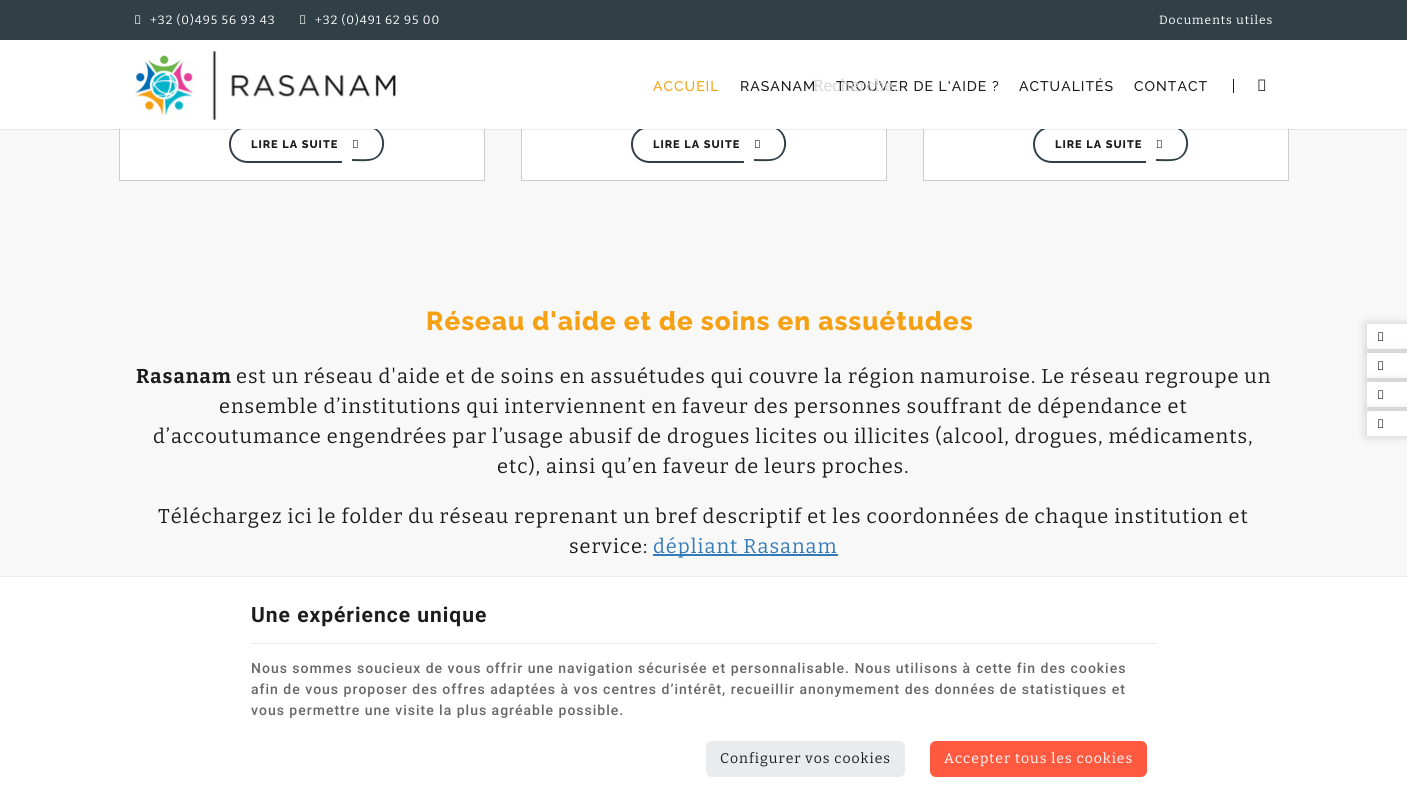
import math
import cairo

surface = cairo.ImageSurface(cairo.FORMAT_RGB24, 1407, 801)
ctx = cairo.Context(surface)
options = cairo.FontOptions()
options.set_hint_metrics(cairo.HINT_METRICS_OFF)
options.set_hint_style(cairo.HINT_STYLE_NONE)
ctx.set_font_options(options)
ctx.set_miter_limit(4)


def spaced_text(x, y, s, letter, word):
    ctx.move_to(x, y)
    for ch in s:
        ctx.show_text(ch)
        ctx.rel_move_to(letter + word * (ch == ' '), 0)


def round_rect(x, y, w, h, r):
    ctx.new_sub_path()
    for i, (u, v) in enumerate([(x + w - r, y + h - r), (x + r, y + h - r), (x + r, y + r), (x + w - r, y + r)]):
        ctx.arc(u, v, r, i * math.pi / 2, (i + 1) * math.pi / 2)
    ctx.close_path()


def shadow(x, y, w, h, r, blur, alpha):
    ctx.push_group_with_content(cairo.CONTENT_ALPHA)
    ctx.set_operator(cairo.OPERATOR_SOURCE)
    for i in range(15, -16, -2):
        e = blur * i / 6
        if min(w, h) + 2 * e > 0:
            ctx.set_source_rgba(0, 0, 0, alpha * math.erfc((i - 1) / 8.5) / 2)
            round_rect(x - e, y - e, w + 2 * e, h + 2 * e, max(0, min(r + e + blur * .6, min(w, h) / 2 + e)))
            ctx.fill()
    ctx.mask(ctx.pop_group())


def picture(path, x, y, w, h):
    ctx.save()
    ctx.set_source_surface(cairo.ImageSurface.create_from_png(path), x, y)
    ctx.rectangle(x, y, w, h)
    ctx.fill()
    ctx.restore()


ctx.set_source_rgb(0.969, 0.969, 0.969)
ctx.paint()
ctx.rectangle(119.5, -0.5, 365, 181)
ctx.set_source_rgb(0.8, 0.8, 0.8)
ctx.set_line_width(1)
ctx.stroke()
ctx.set_source_rgb(1, 1, 1)
ctx.rectangle(120, 129, 364, 51)
ctx.fill()
ctx.set_source_rgb(0.192, 0.251, 0.278)
ctx.set_fill_rule(cairo.FILL_RULE_EVEN_ODD)
ctx.new_path()
ctx.move_to(248, 126)
ctx.line_to(342, 126)
ctx.line_to(342, 163)
ctx.line_to(248, 163)
ctx.curve_to(237, 163, 229, 155, 229, 144)
ctx.curve_to(229, 134, 237, 126, 248, 126)
ctx.close_path()
ctx.move_to(248, 128)
ctx.line_to(342, 128)
ctx.line_to(342, 161)
ctx.line_to(248, 161)
ctx.curve_to(238, 161, 231, 154, 231, 144)
ctx.curve_to(231, 135, 238, 128, 248, 128)
ctx.close_path()
ctx.fill()
ctx.new_path()
ctx.move_to(352, 126)
ctx.curve_to(358, 126, 369, 125, 374, 127.5)
ctx.curve_to(387.5, 133, 387.5, 154, 374, 159.5)
ctx.curve_to(369, 162, 358, 161, 352, 161)
ctx.close_path()
ctx.move_to(352, 128)
ctx.curve_to(357.5, 128, 368.5, 127, 373.5, 129)
ctx.curve_to(385, 134, 385, 153, 373.5, 158)
ctx.curve_to(368.5, 160, 357.5, 159, 352, 159)
ctx.close_path()
ctx.fill()
ctx.rectangle(521.5, -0.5, 365, 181)
ctx.set_source_rgb(0.8, 0.8, 0.8)
ctx.stroke()
ctx.set_source_rgb(1, 1, 1)
ctx.rectangle(522, 129, 364, 51)
ctx.fill()
ctx.set_source_rgb(0.192, 0.251, 0.278)
ctx.new_path()
ctx.move_to(650, 126)
ctx.line_to(744, 126)
ctx.line_to(744, 163)
ctx.line_to(650, 163)
ctx.curve_to(639, 163, 631, 155, 631, 144)
ctx.curve_to(631, 134, 639, 126, 650, 126)
ctx.close_path()
ctx.move_to(650, 128)
ctx.line_to(744, 128)
ctx.line_to(744, 161)
ctx.line_to(650, 161)
ctx.curve_to(640, 161, 633, 154, 633, 144)
ctx.curve_to(633, 135, 640, 128, 650, 128)
ctx.close_path()
ctx.fill()
ctx.new_path()
ctx.move_to(754, 126)
ctx.curve_to(760, 126, 771, 125, 776, 127.5)
ctx.curve_to(789.5, 133, 789.5, 154, 776, 159.5)
ctx.curve_to(771, 162, 760, 161, 754, 161)
ctx.close_path()
ctx.move_to(754, 128)
ctx.curve_to(759.5, 128, 770.5, 127, 775.5, 129)
ctx.curve_to(787, 134, 787, 153, 775.5, 158)
ctx.curve_to(770.5, 160, 759.5, 159, 754, 159)
ctx.close_path()
ctx.fill()
ctx.rectangle(923.5, -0.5, 365, 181)
ctx.set_source_rgb(0.8, 0.8, 0.8)
ctx.stroke()
ctx.set_source_rgb(1, 1, 1)
ctx.rectangle(924, 129, 364, 51)
ctx.fill()
ctx.set_source_rgb(0.192, 0.251, 0.278)
ctx.new_path()
ctx.move_to(1052, 126)
ctx.line_to(1146, 126)
ctx.line_to(1146, 163)
ctx.line_to(1052, 163)
ctx.curve_to(1041, 163, 1033, 155, 1033, 144)
ctx.curve_to(1033, 134, 1041, 126, 1052, 126)
ctx.close_path()
ctx.move_to(1052, 128)
ctx.line_to(1146, 128)
ctx.line_to(1146, 161)
ctx.line_to(1052, 161)
ctx.curve_to(1042, 161, 1035, 154, 1035, 144)
ctx.curve_to(1035, 135, 1042, 128, 1052, 128)
ctx.close_path()
ctx.fill()
ctx.new_path()
ctx.move_to(1156, 126)
ctx.curve_to(1162, 126, 1173, 125, 1178, 127.5)
ctx.curve_to(1191.5, 133, 1191.5, 154, 1178, 159.5)
ctx.curve_to(1173, 162, 1162, 161, 1156, 161)
ctx.close_path()
ctx.move_to(1156, 128)
ctx.curve_to(1161.5, 128, 1172.5, 127, 1177.5, 129)
ctx.curve_to(1189, 134, 1189, 153, 1177.5, 158)
ctx.curve_to(1172.5, 160, 1161.5, 159, 1156, 159)
ctx.close_path()
ctx.fill()
ctx.rectangle(-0.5, -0.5, 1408, 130)
ctx.set_source_rgba(0, 0, 0, 0.07)
ctx.stroke()
ctx.set_source_rgb(1, 1, 1)
ctx.rectangle(0, 40, 1407, 89)
ctx.fill()
ctx.set_source_rgb(0.192, 0.251, 0.278)
ctx.rectangle(0, 0, 1407, 40)
ctx.fill()
picture("img1.png", 135, 15, 6, 9)
ctx.select_font_face("Bitter")
ctx.set_font_size(12)
ctx.set_source_rgb(1, 1, 1)
spaced_text(150, 24, "+32 (0)495 56 93 43", 1, 0)
picture("img1.png", 300, 15, 6, 9)
spaced_text(315, 24, "+32 (0)491 62 95 00", 1, 0)
spaced_text(1159, 24, "Documents utiles", 1, 0)
picture("img2.png", 135, 51, 261, 69)
ctx.select_font_face("Raleway Medium")
ctx.set_font_size(14)
ctx.set_source_rgb(0.961, 0.631, 0.075)
spaced_text(653, 91, "ACCUEIL", 1, 0)
ctx.set_source_rgb(0.11, 0.11, 0.11)
spaced_text(740, 91, "RASANAM", 1, 0)
spaced_text(836, 91, "TROUVER DE L'AIDE ?", 1, 0)
spaced_text(1019, 91, "ACTUALITÉS", 1, 0)
spaced_text(1134, 91, "CONTACT", 1, 0)
ctx.select_font_face("Bitter")
ctx.set_font_size(16)
ctx.set_source_rgb(0.827, 0.827, 0.827)
ctx.move_to(813, 91)
ctx.show_text("Recherche...")
ctx.set_source_rgb(0.11, 0.11, 0.11)
ctx.rectangle(1233, 79, 1, 14)
ctx.fill()
picture("img3.png", 1258, 79, 8, 12)
ctx.select_font_face("Raleway ExtraBold")
ctx.set_font_size(11)
spaced_text(251, 148, "LIRE LA SUITE", 1, 0)
picture("img4.png", 353, 140, 5, 8)
spaced_text(653, 148, "LIRE LA SUITE", 1, 0)
picture("img4.png", 755, 140, 5, 8)
spaced_text(1055, 148, "LIRE LA SUITE", 1, 0)
picture("img4.png", 1157, 140, 5, 8)
ctx.set_font_size(26)
ctx.set_source_rgb(0.961, 0.631, 0.075)
spaced_text(426, 330, "Réseau d'aide et de soins en assuétudes", 1, 0)
ctx.select_font_face("Bitter", cairo.FONT_SLANT_NORMAL, cairo.FONT_WEIGHT_BOLD)
ctx.set_font_size(20)
ctx.set_source_rgb(0.11, 0.11, 0.11)
spaced_text(136, 383, "Rasanam", 1, 0)
ctx.select_font_face("Bitter")
spaced_text(236, 383, "est un réseau d'aide et de soins en assuétudes qui couvre la région namuroise. Le réseau regroupe un", 1, 0)
spaced_text(219, 413, "ensemble d’institutions qui interviennent en faveur des personnes souffrant de dépendance et", 1, 0)
spaced_text(153, 443, "d’accoutumance engendrées par l’usage abusif de drogues licites ou illicites (alcool, drogues, médicaments,", 1, 0)
spaced_text(497, 473, "etc), ainsi qu’en faveur de leurs proches.", 1, 0)
spaced_text(158, 523, "Téléchargez ici le folder du réseau reprenant un bref descriptif et les coordonnées de chaque institution et", 1, 0)
spaced_text(569, 553, "service:", 1, 0)
ctx.set_source_rgb(0.2, 0.478, 0.718)
ctx.rectangle(653, 554, 185, 2)
ctx.fill()
spaced_text(653, 553, "dépliant Rasanam", 1, 0)
ctx.set_source_rgb(0, 0, 0)
shadow(1367, 324, 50, 25, 0, 5, 0.2)
ctx.set_source_rgb(1, 1, 1)
ctx.rectangle(1367, 324, 40, 25)
ctx.fill()
picture("img5.png", 1378, 332, 6, 9)
ctx.set_source_rgb(0, 0, 0)
shadow(1367, 353, 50, 25, 0, 5, 0.2)
ctx.set_source_rgb(1, 1, 1)
ctx.rectangle(1367, 353, 40, 25)
ctx.fill()
picture("img5.png", 1378, 361, 6, 9)
ctx.set_source_rgb(0, 0, 0)
shadow(1367, 382, 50, 25, 0, 5, 0.2)
ctx.set_source_rgb(1, 1, 1)
ctx.rectangle(1367, 382, 40, 25)
ctx.fill()
picture("img5.png", 1378, 390, 6, 9)
ctx.set_source_rgb(0, 0, 0)
shadow(1367, 411, 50, 25, 0, 5, 0.2)
ctx.set_source_rgb(1, 1, 1)
ctx.rectangle(1367, 411, 40, 25)
ctx.fill()
picture("img5.png", 1378, 419, 6, 9)
ctx.rectangle(0, 577, 1407, 224)
ctx.fill()
ctx.set_source_rgb(0.922, 0.922, 0.922)
ctx.rectangle(0, 576, 1407, 1)
ctx.fill()
ctx.rectangle(251, 643, 906, 1)
ctx.fill()
ctx.select_font_face("Roboto", cairo.FONT_SLANT_NORMAL, cairo.FONT_WEIGHT_BOLD)
ctx.set_font_size(21)
ctx.set_source_rgb(0.11, 0.11, 0.11)
spaced_text(251, 622, "Une expérience unique", 1, 0)
ctx.select_font_face("Roboto Medium")
ctx.set_font_size(14)
ctx.set_source_rgb(0.4, 0.4, 0.4)
spaced_text(251, 673, "Nous sommes soucieux de vous offrir une navigation sécurisée et personnalisable. Nous utilisons à cette fin des cookies", 1, 0)
spaced_text(251, 694, "afin de vous proposer des offres adaptées à vos centres d’intérêt, recueillir anonymement des données de statistiques et", 1, 0)
spaced_text(251, 715, "vous permettre une visite la plus agréable possible.", 1, 0)
ctx.set_source_rgb(0.914, 0.922, 0.937)
round_rect(706, 741, 199, 36, 6)
ctx.fill()
ctx.select_font_face("Bitter")
ctx.set_source_rgb(0.11, 0.11, 0.11)
spaced_text(720, 763, "Configurer vos cookies", 1, 0)
ctx.set_source_rgb(1, 0.349, 0.247)
round_rect(930, 741, 217, 36, 6)
ctx.fill()
ctx.set_source_rgb(1, 1, 1)
spaced_text(944, 763, "Accepter tous les cookies", 1, 0)
surface.write_to_png("page.png")
